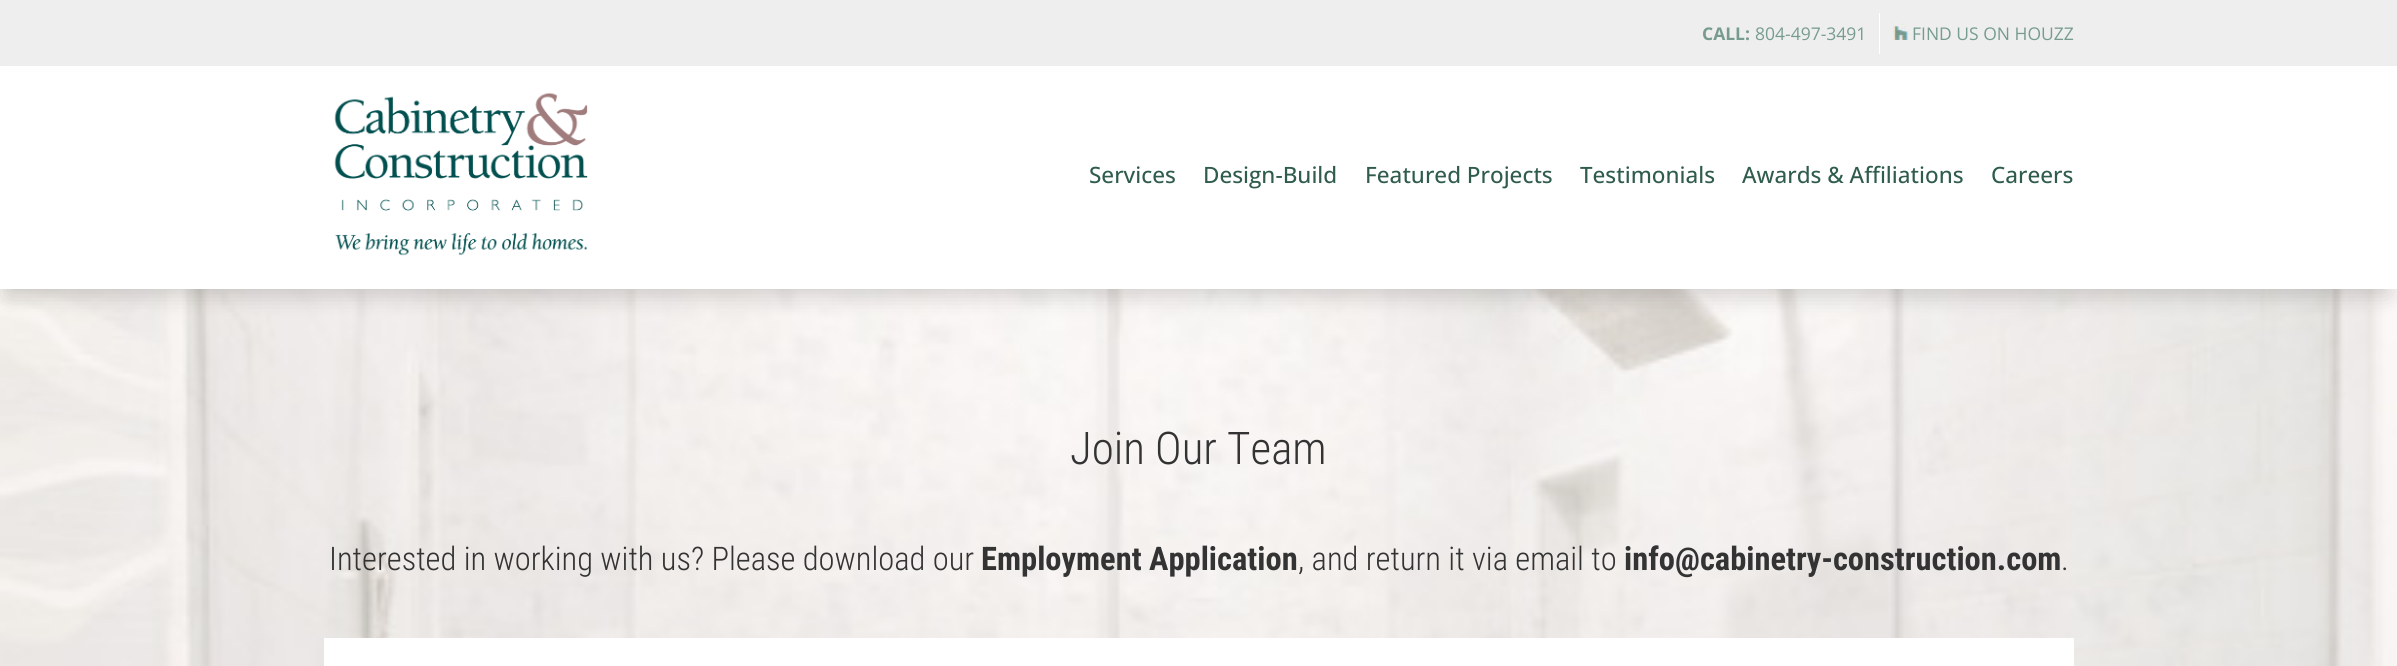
import math
import cairo

surface = cairo.ImageSurface(cairo.FORMAT_RGB24, 2397, 666)
ctx = cairo.Context(surface)
options = cairo.FontOptions()
options.set_hint_metrics(cairo.HINT_METRICS_OFF)
options.set_hint_style(cairo.HINT_STYLE_NONE)
ctx.set_font_options(options)
ctx.set_miter_limit(4)


def round_rect(x, y, w, h, r):
    ctx.new_sub_path()
    for i, (u, v) in enumerate([(x + w - r, y + h - r), (x + r, y + h - r), (x + r, y + r), (x + w - r, y + r)]):
        ctx.arc(u, v, r, i * math.pi / 2, (i + 1) * math.pi / 2)
    ctx.close_path()


def shadow(x, y, w, h, r, blur, alpha):
    ctx.push_group_with_content(cairo.CONTENT_ALPHA)
    ctx.set_operator(cairo.OPERATOR_SOURCE)
    for i in range(15, -16, -2):
        e = blur * i / 6
        if min(w, h) + 2 * e > 0:
            ctx.set_source_rgba(0, 0, 0, alpha * math.erfc((i - 1) / 8.5) / 2)
            round_rect(x - e, y - e, w + 2 * e, h + 2 * e, max(0, min(r + e + blur * .6, min(w, h) / 2 + e)))
            ctx.fill()
    ctx.mask(ctx.pop_group())


def picture(path, x, y, w, h):
    ctx.save()
    ctx.set_source_surface(cairo.ImageSurface.create_from_png(path), x, y)
    ctx.rectangle(x, y, w, h)
    ctx.fill()
    ctx.restore()


ctx.set_source_rgb(1, 1, 1)
ctx.paint()
ctx.set_source_rgb(0.933, 0.933, 0.933)
ctx.rectangle(0, 0, 2397, 66)
ctx.fill()
ctx.set_source_rgb(1, 1, 1)
ctx.rectangle(1879, 13, 1, 41)
ctx.fill()
ctx.select_font_face("Open Sans", cairo.FONT_SLANT_NORMAL, cairo.FONT_WEIGHT_BOLD)
ctx.set_font_size(17.5)
ctx.set_source_rgb(0.467, 0.612, 0.561)
ctx.move_to(1702, 40)
ctx.show_text("CALL:")
ctx.select_font_face("Open Sans")
ctx.move_to(1755, 40)
ctx.show_text("804-497-3491")
picture("img1.png", 1892, 22, 16, 18)
ctx.move_to(1912, 40)
ctx.show_text("FIND US ON HOUZZ")
picture("img3.png", 0, 289, 2397, 377)
ctx.set_source_rgb(0, 0, 0)
shadow(8, 89, 2382, 207, 0, 11, 0.16)
ctx.set_source_rgb(1, 1, 1)
ctx.rectangle(0, 72, 2397, 217)
ctx.fill()
picture("img2.png", 334, 92, 254, 164)
ctx.select_font_face("Open Sans Medium")
ctx.set_font_size(22.5)
ctx.set_source_rgb(0.188, 0.361, 0.298)
ctx.move_to(1089, 183)
ctx.show_text("Services")
ctx.move_to(1203, 183)
ctx.show_text("Design-Build")
ctx.move_to(1365, 183)
ctx.show_text("Featured Projects")
ctx.move_to(1580, 183)
ctx.show_text("Testimonials")
ctx.move_to(1742, 183)
ctx.show_text("Awards & Affiliations")
ctx.move_to(1991, 183)
ctx.show_text("Careers")
ctx.select_font_face("Roboto Condensed Light")
ctx.set_font_size(45)
ctx.set_source_rgb(0.2, 0.2, 0.2)
ctx.move_to(1070, 464)
ctx.show_text("Join Our Team")
ctx.set_font_size(32.5)
ctx.move_to(329, 570)
ctx.show_text("Interested in working with us? Please download our")
ctx.select_font_face("Roboto Condensed", cairo.FONT_SLANT_NORMAL, cairo.FONT_WEIGHT_BOLD)
ctx.move_to(981, 570)
ctx.show_text("Employment Application")
ctx.select_font_face("Roboto Condensed Light")
ctx.move_to(1298, 570)
ctx.show_text(", and return it via email to")
ctx.select_font_face("Roboto Condensed", cairo.FONT_SLANT_NORMAL, cairo.FONT_WEIGHT_BOLD)
ctx.move_to(1624, 570)
ctx.show_text("info@cabinetry-construction.com")
ctx.select_font_face("Roboto Condensed Light")
ctx.move_to(2061, 570)
ctx.show_text(".")
ctx.set_source_rgb(1, 1, 1)
ctx.rectangle(324, 638, 1750, 28)
ctx.fill()
surface.write_to_png("page.png")
